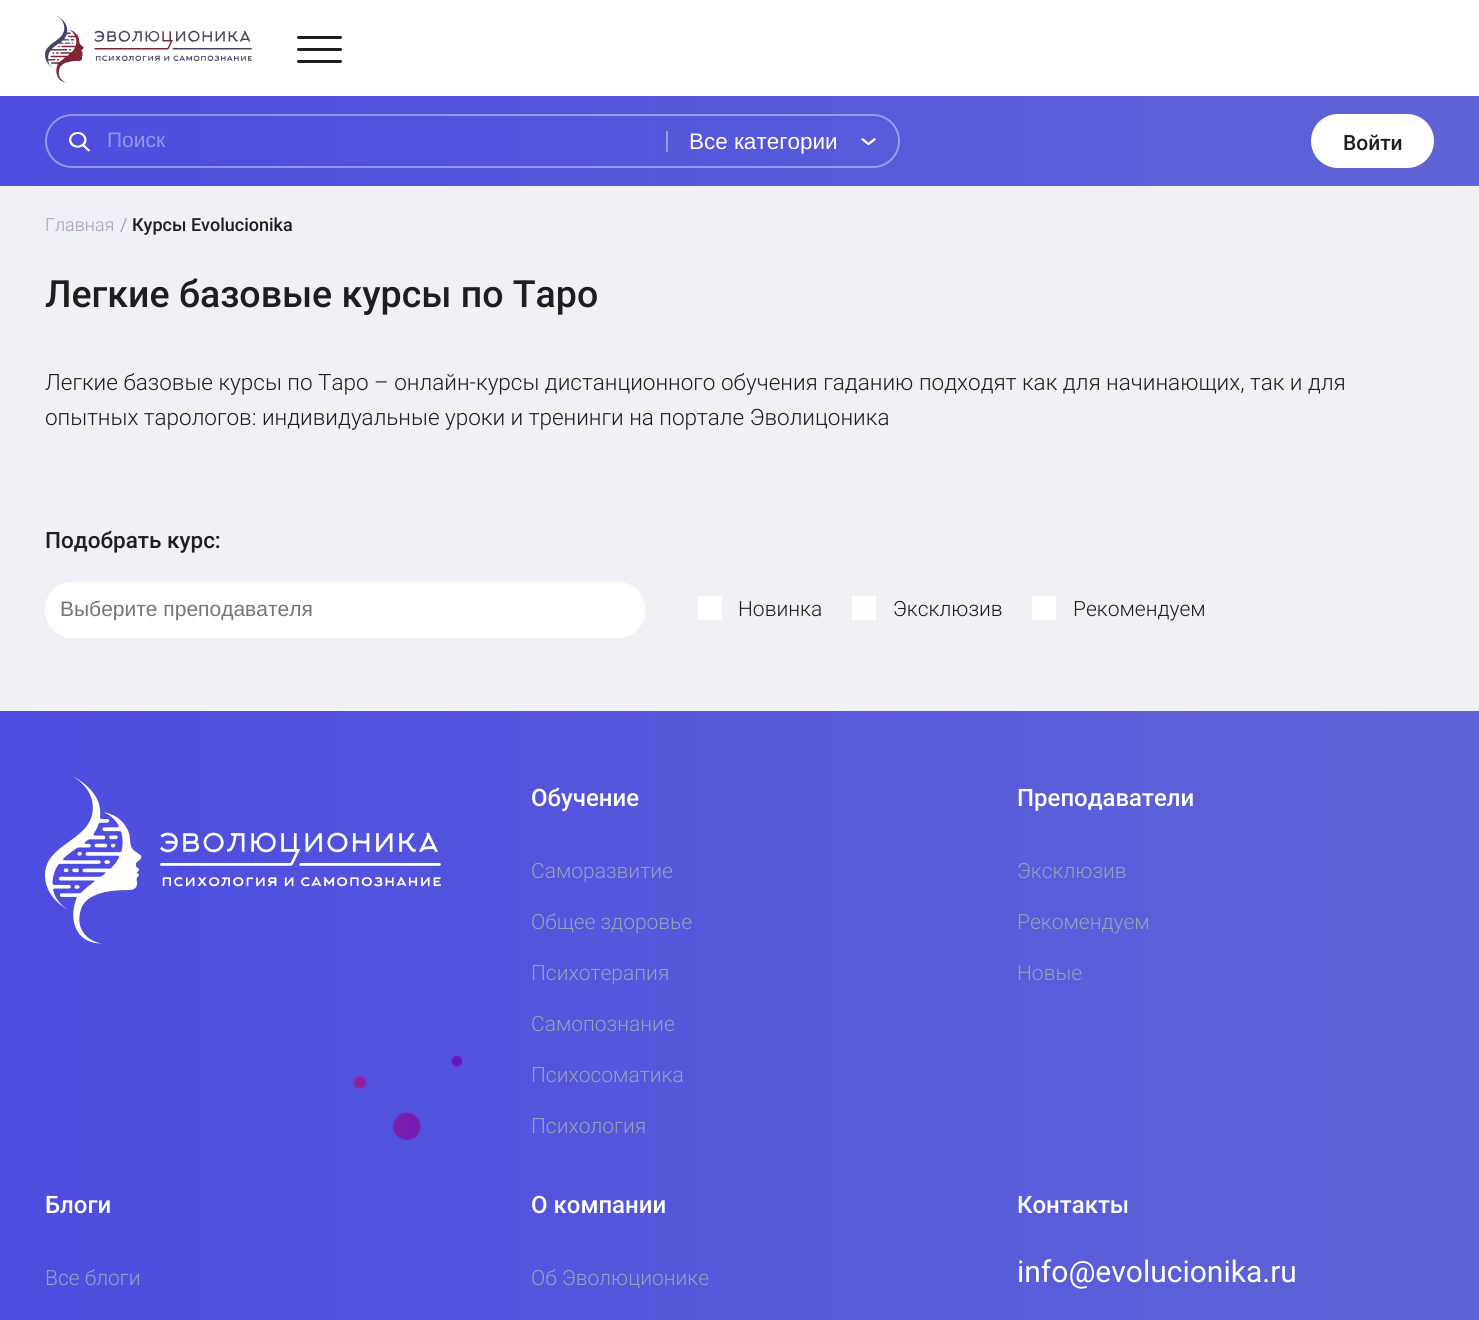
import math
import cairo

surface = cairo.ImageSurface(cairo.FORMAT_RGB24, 1479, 1320)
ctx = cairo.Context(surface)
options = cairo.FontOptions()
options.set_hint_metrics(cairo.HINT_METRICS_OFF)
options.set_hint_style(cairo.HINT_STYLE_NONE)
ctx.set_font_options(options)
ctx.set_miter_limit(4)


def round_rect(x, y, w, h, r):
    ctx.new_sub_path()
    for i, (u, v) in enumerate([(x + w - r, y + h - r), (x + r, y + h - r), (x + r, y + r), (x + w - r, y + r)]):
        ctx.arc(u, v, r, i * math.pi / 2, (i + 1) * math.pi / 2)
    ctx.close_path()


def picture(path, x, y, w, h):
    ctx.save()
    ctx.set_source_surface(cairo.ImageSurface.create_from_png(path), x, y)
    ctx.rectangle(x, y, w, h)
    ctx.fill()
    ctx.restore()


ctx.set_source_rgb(0.941, 0.941, 0.961)
ctx.paint()
ctx.set_source_rgb(1, 1, 1)
ctx.rectangle(0, 0, 1479, 96)
ctx.fill()
picture("img1.png", 45, 15, 207, 68)
ctx.set_source_rgb(0.118, 0.118, 0.118)
round_rect(297, 36, 45, 3, 1.5)
ctx.fill()
round_rect(297, 60, 45, 3, 1.5)
ctx.fill()
round_rect(297, 48, 45, 3, 1.5)
ctx.fill()
gradient = cairo.LinearGradient(0, 141, 1479, 141)
gradient.add_color_stop_rgba(0, 0.302, 0.298, 0.878, 1)
gradient.add_color_stop_rgba(1, 0.373, 0.392, 0.839, 1)
ctx.set_source(gradient)
ctx.rectangle(0, 96, 1479, 90)
ctx.fill()
round_rect(46, 115, 853, 52, 26)
ctx.set_source_rgba(1, 1, 1, 0.4)
ctx.stroke()
picture("img2.png", 69, 132, 21, 20)
ctx.select_font_face("Liberation Sans")
ctx.set_font_size(21)
ctx.set_source_rgb(0.584, 0.584, 0.925)
ctx.move_to(107, 147)
ctx.show_text("Поиск")
ctx.set_source_rgb(0.6, 0.604, 0.914)
ctx.rectangle(666, 131, 2, 21)
ctx.fill()
ctx.set_font_size(22.5)
ctx.set_source_rgb(1, 1, 1)
ctx.move_to(689, 149)
ctx.show_text("Все категории")
picture("img3.png", 861, 138, 15, 8)
round_rect(1312, 115, 121, 52, 26)
ctx.fill_preserve()
ctx.stroke()
ctx.select_font_face("Roboto Medium")
ctx.set_font_size(21)
ctx.set_source_rgb(0.118, 0.118, 0.118)
ctx.move_to(1343, 150)
ctx.show_text("Войти")
ctx.select_font_face("Roboto Light")
ctx.set_font_size(18)
ctx.set_source_rgb(0.6, 0.631, 0.729)
ctx.move_to(45, 231)
ctx.show_text("Главная")
ctx.select_font_face("Roboto")
ctx.move_to(120, 231)
ctx.show_text("/")
ctx.select_font_face("Roboto Medium")
ctx.set_source_rgb(0.118, 0.118, 0.118)
ctx.move_to(132, 231)
ctx.show_text("Курсы Evolucionika")
ctx.set_font_size(37.5)
ctx.move_to(45, 307)
ctx.show_text("Легкие базовые курсы по Таро")
ctx.select_font_face("Roboto Light")
ctx.set_font_size(22.5)
ctx.move_to(45, 390)
ctx.show_text("Легкие базовые курсы по Таро – онлайн-курсы дистанционного обучения гаданию подходят как для начинающих, так и для")
ctx.move_to(45, 425)
ctx.show_text("опытных тарологов: индивидуальные уроки и тренинги на портале Эволицоника")
ctx.select_font_face("Roboto Medium")
ctx.move_to(45, 548)
ctx.show_text("Подобрать курс:")
ctx.set_source_rgb(1, 1, 1)
round_rect(45, 582, 600, 56, 27)
ctx.fill()
ctx.select_font_face("Liberation Sans")
ctx.set_font_size(21)
ctx.set_source_rgb(0.459, 0.459, 0.459)
ctx.move_to(60, 616)
ctx.show_text("Выберите преподавателя")
ctx.set_source_rgb(1, 1, 1)
ctx.rectangle(698, 596, 24, 24)
ctx.fill()
ctx.select_font_face("Roboto Light")
ctx.set_source_rgb(0.118, 0.118, 0.118)
ctx.move_to(738, 616)
ctx.show_text("Новинка")
ctx.set_source_rgb(1, 1, 1)
ctx.rectangle(852, 596, 24, 24)
ctx.fill()
ctx.set_source_rgb(0.118, 0.118, 0.118)
ctx.move_to(893, 616)
ctx.show_text("Эксклюзив")
ctx.set_source_rgb(1, 1, 1)
ctx.rectangle(1032, 596, 24, 24)
ctx.fill()
ctx.set_source_rgb(0.118, 0.118, 0.118)
ctx.move_to(1073, 616)
ctx.show_text("Рекомендуем")
gradient = cairo.LinearGradient(0, 1159, 1479, 1159)
gradient.add_color_stop_rgba(0, 0.302, 0.298, 0.878, 1)
gradient.add_color_stop_rgba(1, 0.373, 0.392, 0.839, 1)
ctx.set_source(gradient)
ctx.rectangle(0, 711, 1479, 609)
ctx.fill()
picture("img4.png", 45, 776, 396, 168)
picture("img5.png", 352, 1056, 110, 84)
ctx.select_font_face("Roboto Medium")
ctx.set_font_size(24)
ctx.set_source_rgb(1, 1, 1)
ctx.move_to(531, 806)
ctx.show_text("Обучение")
ctx.select_font_face("Roboto Light")
ctx.set_font_size(21)
ctx.set_source_rgb(0.6, 0.631, 0.729)
ctx.move_to(531, 878)
ctx.show_text("Саморазвитие")
ctx.move_to(531, 929)
ctx.show_text("Общее здоровье")
ctx.move_to(531, 980)
ctx.show_text("Психотерапия")
ctx.move_to(531, 1031)
ctx.show_text("Самопознание")
ctx.move_to(531, 1082)
ctx.show_text("Психосоматика")
ctx.move_to(531, 1133)
ctx.show_text("Психология")
ctx.select_font_face("Roboto Medium")
ctx.set_font_size(24)
ctx.set_source_rgb(1, 1, 1)
ctx.move_to(1017, 806)
ctx.show_text("Преподаватели")
ctx.select_font_face("Roboto Light")
ctx.set_font_size(21)
ctx.set_source_rgb(0.6, 0.631, 0.729)
ctx.move_to(1017, 878)
ctx.show_text("Эксклюзив")
ctx.move_to(1017, 929)
ctx.show_text("Рекомендуем")
ctx.move_to(1017, 980)
ctx.show_text("Новые")
ctx.select_font_face("Roboto Medium")
ctx.set_font_size(24)
ctx.set_source_rgb(1, 1, 1)
ctx.move_to(45, 1213)
ctx.show_text("Блоги")
ctx.select_font_face("Roboto Light")
ctx.set_font_size(21)
ctx.set_source_rgb(0.6, 0.631, 0.729)
ctx.move_to(45, 1285)
ctx.show_text("Все блоги")
ctx.select_font_face("Roboto Medium")
ctx.set_font_size(24)
ctx.set_source_rgb(1, 1, 1)
ctx.move_to(531, 1213)
ctx.show_text("О компании")
ctx.select_font_face("Roboto Light")
ctx.set_font_size(21)
ctx.set_source_rgb(0.6, 0.631, 0.729)
ctx.move_to(531, 1285)
ctx.show_text("Об Эволюционике")
ctx.select_font_face("Roboto Medium")
ctx.set_font_size(24)
ctx.set_source_rgb(1, 1, 1)
ctx.move_to(1017, 1213)
ctx.show_text("Контакты")
ctx.select_font_face("Roboto")
ctx.set_font_size(30)
ctx.move_to(1017, 1282)
ctx.show_text("info@evolucionika.ru")
surface.write_to_png("page.png")
